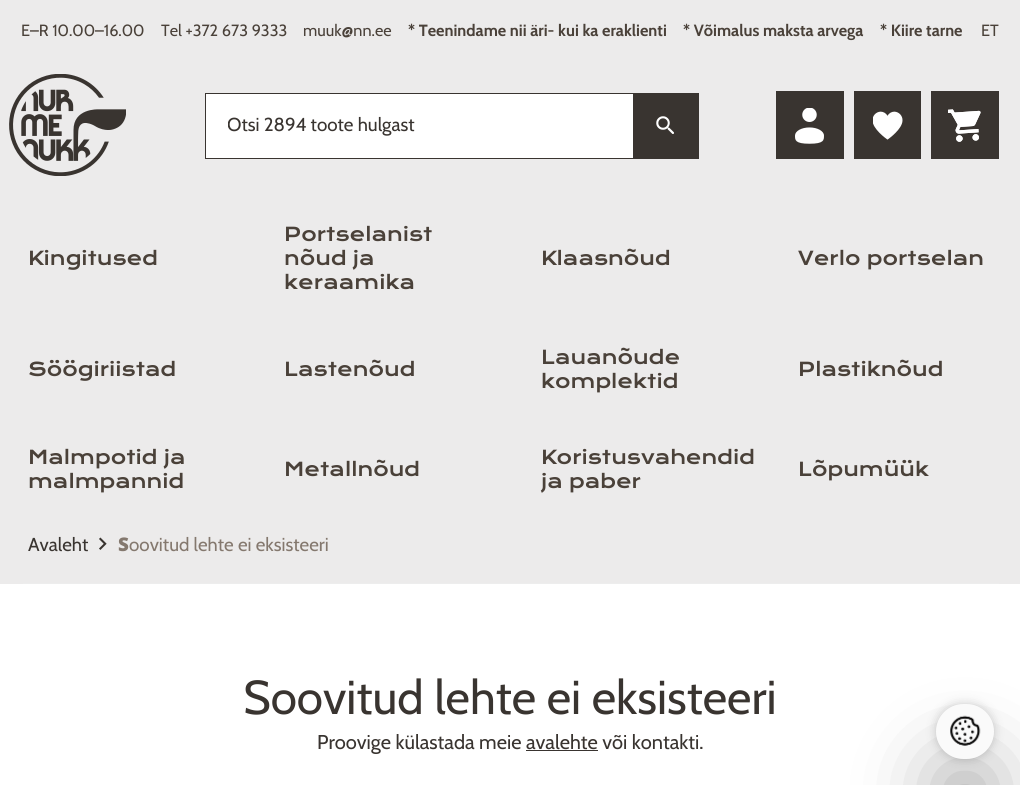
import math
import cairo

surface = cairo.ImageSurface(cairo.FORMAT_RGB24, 1020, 785)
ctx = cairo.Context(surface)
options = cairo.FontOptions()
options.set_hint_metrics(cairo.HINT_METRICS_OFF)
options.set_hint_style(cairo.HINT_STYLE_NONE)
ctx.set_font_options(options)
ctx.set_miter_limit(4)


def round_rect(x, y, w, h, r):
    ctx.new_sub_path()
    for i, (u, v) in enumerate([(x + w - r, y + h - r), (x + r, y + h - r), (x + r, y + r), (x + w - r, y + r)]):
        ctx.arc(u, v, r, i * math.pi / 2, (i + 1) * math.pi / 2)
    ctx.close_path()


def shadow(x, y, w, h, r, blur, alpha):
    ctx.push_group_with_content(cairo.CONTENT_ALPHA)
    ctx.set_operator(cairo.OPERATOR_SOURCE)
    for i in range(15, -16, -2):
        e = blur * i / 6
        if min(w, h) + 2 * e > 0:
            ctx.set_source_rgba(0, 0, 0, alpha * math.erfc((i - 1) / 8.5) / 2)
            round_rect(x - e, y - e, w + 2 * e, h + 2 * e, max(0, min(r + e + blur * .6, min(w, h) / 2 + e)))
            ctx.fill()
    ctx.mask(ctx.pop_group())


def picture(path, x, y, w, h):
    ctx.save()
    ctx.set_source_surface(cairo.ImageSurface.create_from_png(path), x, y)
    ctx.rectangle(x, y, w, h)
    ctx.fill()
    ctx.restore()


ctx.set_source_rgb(1, 1, 1)
ctx.paint()
ctx.set_source_rgb(0.922, 0.918, 0.918)
ctx.rectangle(0, 0, 1020, 584)
ctx.fill()
ctx.select_font_face("Cabin")
ctx.set_font_size(16.25)
ctx.set_source_rgb(0.29, 0.255, 0.224)
ctx.move_to(21, 36)
ctx.show_text("E–R 10.00–16.00")
ctx.move_to(161, 36)
ctx.show_text("Tel +372 673 9333")
ctx.move_to(303, 36)
ctx.show_text("muuk@nn.ee")
ctx.select_font_face("Cabin", cairo.FONT_SLANT_NORMAL, cairo.FONT_WEIGHT_BOLD)
ctx.move_to(408, 36)
ctx.show_text("* Teenindame nii äri- kui ka eraklienti")
ctx.move_to(683, 36)
ctx.show_text("* Võimalus maksta arvega")
ctx.move_to(880, 36)
ctx.show_text("* Kiire tarne")
ctx.select_font_face("Cabin")
ctx.move_to(981, 36)
ctx.show_text("ET")
picture("img1.png", 9, 74, 117, 102)
ctx.set_source_rgb(1, 1, 1)
ctx.rectangle(206, 94, 427, 64)
ctx.fill()
ctx.rectangle(205.5, 93.5, 493, 65)
ctx.set_source_rgb(0.224, 0.204, 0.188)
ctx.set_line_width(1)
ctx.stroke()
ctx.save()
ctx.rectangle(228, 114, 403, 22)
ctx.clip()
ctx.set_font_size(18.75)
ctx.move_to(227, 131)
ctx.show_text("Otsi 2894 toote hulgast")
ctx.restore()
ctx.rectangle(633, 94, 65, 64)
ctx.fill()
picture("img2.png", 656, 116, 18, 18)
ctx.rectangle(776, 91, 68, 68)
ctx.fill()
picture("img3.png", 795, 108, 29, 36)
ctx.rectangle(854, 91, 67, 68)
ctx.fill()
picture("img4.png", 873, 111, 30, 29)
ctx.rectangle(931, 91, 68, 68)
ctx.fill()
picture("img5.png", 948, 109, 33, 33)
ctx.select_font_face("Krona One")
ctx.set_font_size(18.75)
ctx.set_source_rgb(0.29, 0.255, 0.224)
ctx.move_to(28, 265)
ctx.show_text("Kingitused")
ctx.move_to(284, 241)
ctx.show_text("Portselanist")
ctx.move_to(284, 265)
ctx.show_text("nõud ja")
ctx.move_to(284, 289)
ctx.show_text("keraamika")
ctx.move_to(541, 265)
ctx.show_text("Klaasnõud")
ctx.move_to(798, 265)
ctx.show_text("Verlo portselan")
ctx.move_to(28, 376)
ctx.show_text("Söögiriistad")
ctx.move_to(284, 376)
ctx.show_text("Lastenõud")
ctx.move_to(541, 364)
ctx.show_text("Lauanõude")
ctx.move_to(541, 388)
ctx.show_text("komplektid")
ctx.move_to(798, 376)
ctx.show_text("Plastiknõud")
ctx.move_to(28, 464)
ctx.show_text("Malmpotid ja")
ctx.move_to(28, 488)
ctx.show_text("malmpannid")
ctx.move_to(284, 476)
ctx.show_text("Metallnõud")
ctx.move_to(541, 464)
ctx.show_text("Koristusvahendid")
ctx.move_to(541, 488)
ctx.show_text("ja paber")
ctx.move_to(798, 476)
ctx.show_text("Lõpumüük")
ctx.select_font_face("Cabin")
ctx.set_source_rgb(0.224, 0.204, 0.188)
ctx.move_to(28, 551)
ctx.show_text("Avaleht")
picture("img6.png", 99, 537, 8, 13)
ctx.select_font_face("Noto Sans Black")
ctx.set_source_rgb(0.518, 0.471, 0.431)
ctx.move_to(118, 551)
ctx.show_text("S")
ctx.select_font_face("Cabin")
ctx.move_to(129, 551)
ctx.show_text("oovitud lehte ei eksisteeri")
ctx.set_source_rgb(0.929, 0.929, 0.929)
ctx.rectangle(23, 583, 976, 1)
ctx.fill()
ctx.set_font_size(47.5)
ctx.set_source_rgb(0.224, 0.204, 0.188)
ctx.move_to(243, 714)
ctx.show_text("Soovitud lehte ei eksisteeri")
ctx.set_font_size(20)
ctx.move_to(317, 749)
ctx.show_text("Proovige külastada meie avalehte või kontakti.")
ctx.rectangle(526, 750, 72, 1)
ctx.fill()
ctx.set_source_rgb(0, 0, 0)
shadow(936, 764, 58, 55, 27.5, 40, 0.3)
shadow(936, 704, 58, 55, 27.5, 5, 0.2)
ctx.set_source_rgb(0.98, 0.98, 0.98)
round_rect(936, 704, 58, 55, 27.5)
ctx.fill()
picture("img7.png", 950, 715, 31, 31)
surface.write_to_png("page.png")
